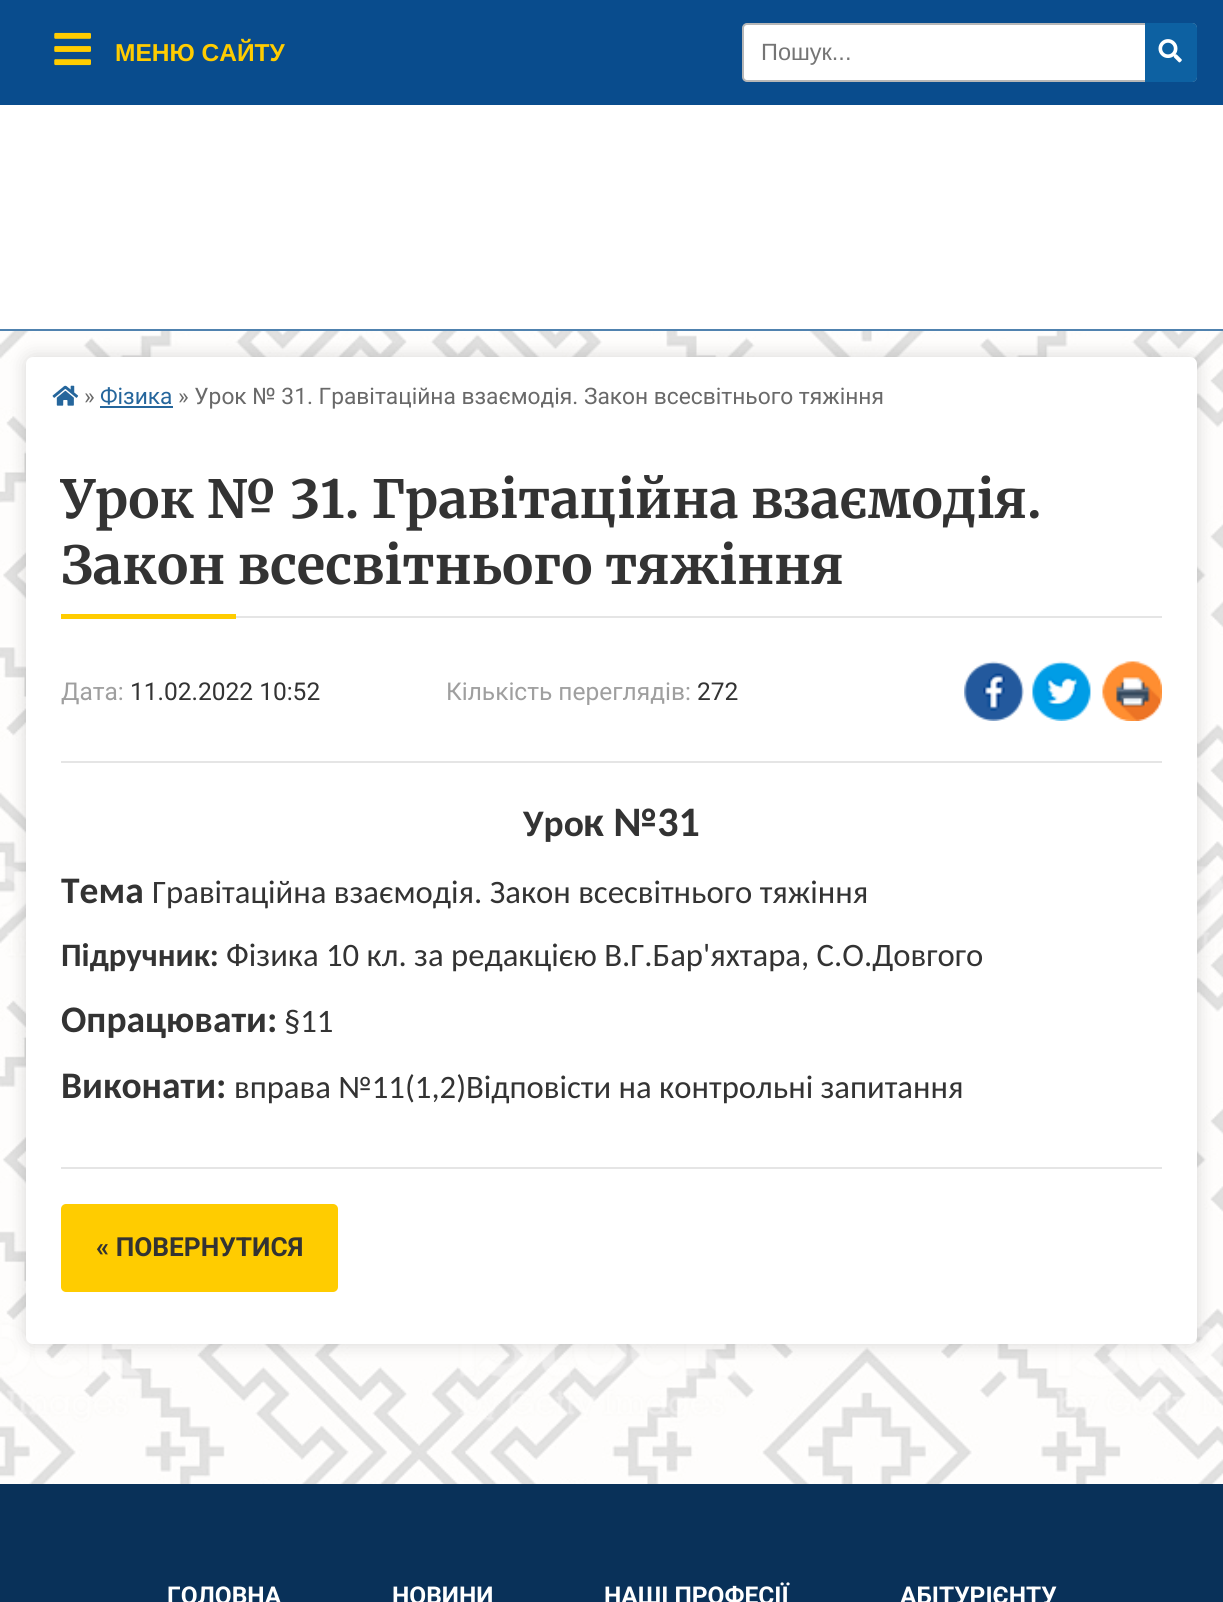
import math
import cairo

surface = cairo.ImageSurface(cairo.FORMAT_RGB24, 1223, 1602)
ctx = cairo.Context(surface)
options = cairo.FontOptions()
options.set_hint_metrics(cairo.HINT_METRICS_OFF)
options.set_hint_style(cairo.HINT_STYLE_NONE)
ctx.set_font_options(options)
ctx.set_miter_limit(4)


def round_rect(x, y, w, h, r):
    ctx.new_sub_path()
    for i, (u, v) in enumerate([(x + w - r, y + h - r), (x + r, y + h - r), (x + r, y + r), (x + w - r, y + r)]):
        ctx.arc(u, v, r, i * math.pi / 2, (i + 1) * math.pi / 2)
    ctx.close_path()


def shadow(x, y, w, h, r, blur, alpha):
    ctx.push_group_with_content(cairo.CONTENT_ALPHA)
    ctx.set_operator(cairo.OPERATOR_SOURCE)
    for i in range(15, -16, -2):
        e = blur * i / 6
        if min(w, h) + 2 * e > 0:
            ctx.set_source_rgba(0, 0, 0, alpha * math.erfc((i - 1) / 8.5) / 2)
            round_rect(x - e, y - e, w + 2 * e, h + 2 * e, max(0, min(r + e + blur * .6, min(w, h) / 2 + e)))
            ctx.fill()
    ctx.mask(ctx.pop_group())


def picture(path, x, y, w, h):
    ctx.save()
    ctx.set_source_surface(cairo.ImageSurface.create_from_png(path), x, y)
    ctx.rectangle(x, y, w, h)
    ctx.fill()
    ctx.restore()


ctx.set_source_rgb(1, 1, 1)
ctx.paint()
picture("img1.png", 0, 331, 1223, 1153)
ctx.set_source_rgb(0.039, 0.298, 0.553)
ctx.rectangle(0, 0, 1223, 105)
ctx.fill()
picture("img2.png", 54, 32, 37, 34)
ctx.select_font_face("Liberation Sans", cairo.FONT_SLANT_NORMAL, cairo.FONT_WEIGHT_BOLD)
ctx.set_font_size(24.5)
ctx.set_source_rgb(1, 0.8, 0)
ctx.move_to(115, 61)
ctx.show_text("МЕНЮ САЙТУ")
ctx.set_source_rgb(1, 1, 1)
round_rect(743, 24, 453, 57, 4)
ctx.fill_preserve()
ctx.set_source_rgb(0.718, 0.718, 0.718)
ctx.stroke()
ctx.select_font_face("Liberation Sans")
ctx.set_font_size(23.5)
ctx.set_source_rgb(0.459, 0.459, 0.459)
ctx.move_to(761, 60)
ctx.show_text("Пошук...")
ctx.set_source_rgb(0.051, 0.38, 0.635)
ctx.new_path()
ctx.move_to(1145, 23)
ctx.line_to(1192, 23)
ctx.curve_to(1195, 23, 1197, 25, 1197, 28)
ctx.line_to(1197, 77)
ctx.curve_to(1197, 80, 1195, 82, 1192, 82)
ctx.line_to(1145, 82)
ctx.close_path()
ctx.fill()
picture("img3.png", 1158, 39, 24, 24)
ctx.set_source_rgb(0.314, 0.51, 0.686)
ctx.rectangle(0, 329, 1223, 2)
ctx.fill()
ctx.set_source_rgb(0, 0, 0)
shadow(26, 357, 1171, 987, 7, 9, 0.15)
ctx.set_source_rgb(1, 1, 1)
round_rect(26, 357, 1171, 987, 7)
ctx.fill()
picture("img4.png", 52, 385, 27, 21)
ctx.select_font_face("Roboto")
ctx.set_font_size(22.75)
ctx.set_source_rgb(0.412, 0.412, 0.412)
ctx.move_to(84, 404)
ctx.show_text("»")
ctx.set_source_rgb(0.145, 0.4, 0.612)
ctx.move_to(100, 404)
ctx.show_text("Фізика")
ctx.rectangle(100, 406, 73, 2)
ctx.fill()
ctx.set_source_rgb(0.412, 0.412, 0.412)
ctx.move_to(178, 404)
ctx.show_text("» Урок № 31. Гравітаційна взаємодія. Закон всесвітнього тяжіння")
ctx.set_source_rgb(0.898, 0.898, 0.898)
ctx.rectangle(236, 616, 926, 2)
ctx.fill()
ctx.select_font_face("Merriweather Light")
ctx.set_font_size(52.5)
ctx.set_source_rgb(0.2, 0.2, 0.2)
ctx.move_to(61, 518)
ctx.show_text("Урок № 31. Гравітаційна взаємодія.")
ctx.move_to(61, 584)
ctx.show_text("Закон всесвітнього тяжіння")
ctx.set_source_rgb(1, 0.8, 0)
ctx.rectangle(61, 614, 175, 5)
ctx.fill()
ctx.select_font_face("Roboto")
ctx.set_font_size(24.5)
ctx.set_source_rgb(0.624, 0.624, 0.624)
ctx.move_to(61, 700)
ctx.show_text("Дата:")
ctx.set_source_rgb(0.2, 0.2, 0.2)
ctx.move_to(130, 700)
ctx.show_text("11.02.2022 10:52")
ctx.set_source_rgb(0.624, 0.624, 0.624)
ctx.move_to(446, 700)
ctx.show_text("Кількість переглядів:")
ctx.set_source_rgb(0.2, 0.2, 0.2)
ctx.move_to(697, 700)
ctx.show_text("272")
picture("img5.png", 964, 661, 60, 60)
picture("img6.png", 1032, 661, 59, 60)
picture("img7.png", 1102, 661, 60, 60)
ctx.set_source_rgb(0.898, 0.898, 0.898)
ctx.rectangle(61, 761, 1101, 2)
ctx.fill()
ctx.select_font_face("Carlito", cairo.FONT_SLANT_NORMAL, cairo.FONT_WEIGHT_BOLD)
ctx.set_font_size(37.5)
ctx.set_source_rgb(0.2, 0.2, 0.2)
ctx.move_to(523, 836)
ctx.show_text("Уро")
ctx.set_font_size(42)
ctx.move_to(583, 836)
ctx.show_text("к №31")
ctx.set_font_size(37.5)
ctx.move_to(61, 903)
ctx.show_text("Тема")
ctx.select_font_face("Carlito")
ctx.set_font_size(32.7)
ctx.move_to(152, 903)
ctx.show_text("Гравітаційна взаємодія. Закон всесвітнього тяжіння")
ctx.select_font_face("Carlito", cairo.FONT_SLANT_NORMAL, cairo.FONT_WEIGHT_BOLD)
ctx.move_to(61, 966)
ctx.show_text("Підручник:")
ctx.select_font_face("Carlito")
ctx.move_to(226, 966)
ctx.show_text("Фізика 10 кл. за редакцією В.Г.Бар'яхтара, С.О.Довгого")
ctx.select_font_face("Carlito", cairo.FONT_SLANT_NORMAL, cairo.FONT_WEIGHT_BOLD)
ctx.set_font_size(37.5)
ctx.move_to(61, 1032)
ctx.show_text("Опрацювати:")
ctx.select_font_face("Carlito")
ctx.set_font_size(32.7)
ctx.move_to(284, 1032)
ctx.show_text("§11")
ctx.select_font_face("Carlito", cairo.FONT_SLANT_NORMAL, cairo.FONT_WEIGHT_BOLD)
ctx.set_font_size(37.5)
ctx.move_to(61, 1098)
ctx.show_text("Виконати:")
ctx.select_font_face("Carlito")
ctx.set_font_size(32.7)
ctx.move_to(234, 1098)
ctx.show_text("вправа №11(1,2)Відповісти на контрольні запитання")
ctx.set_source_rgb(0.898, 0.898, 0.898)
ctx.rectangle(61, 1167, 1101, 2)
ctx.fill()
ctx.set_source_rgb(1, 0.8, 0)
round_rect(61, 1204, 277, 88, 5)
ctx.fill()
ctx.select_font_face("Roboto", cairo.FONT_SLANT_NORMAL, cairo.FONT_WEIGHT_BOLD)
ctx.set_font_size(26.25)
ctx.set_source_rgb(0.2, 0.2, 0.2)
ctx.move_to(96, 1256)
ctx.show_text("« ПОВЕРНУТИСЯ")
ctx.set_source_rgb(0.039, 0.192, 0.349)
ctx.rectangle(0, 1484, 1223, 118)
ctx.fill()
ctx.set_font_size(24.5)
ctx.set_source_rgb(1, 1, 1)
ctx.move_to(167, 1604)
ctx.show_text("ГОЛОВНА")
ctx.move_to(392, 1604)
ctx.show_text("НОВИНИ")
ctx.move_to(604, 1604)
ctx.show_text("НАШІ ПРОФЕСІЇ")
ctx.move_to(900, 1604)
ctx.show_text("АБІТУРІЄНТУ")
surface.write_to_png("page.png")
